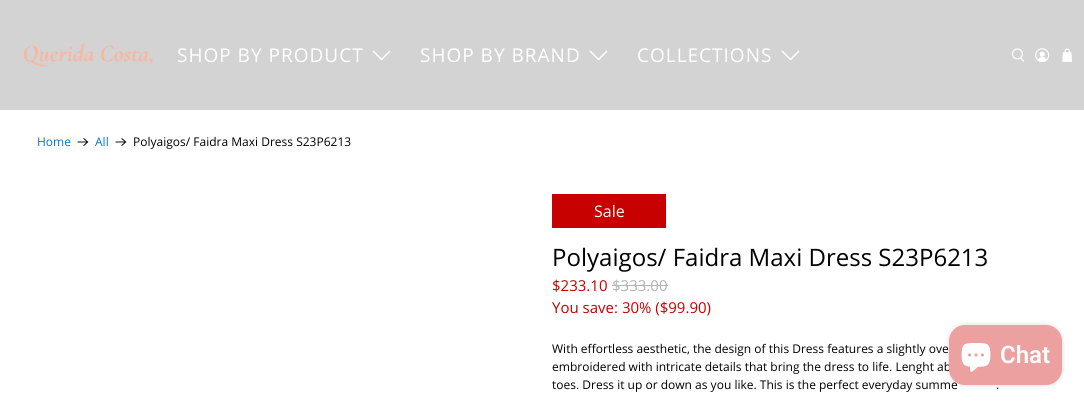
import math
import cairo

surface = cairo.ImageSurface(cairo.FORMAT_RGB24, 1084, 406)
ctx = cairo.Context(surface)
options = cairo.FontOptions()
options.set_hint_metrics(cairo.HINT_METRICS_OFF)
options.set_hint_style(cairo.HINT_STYLE_NONE)
ctx.set_font_options(options)
ctx.set_miter_limit(4)


def spaced_text(x, y, s, letter, word):
    ctx.move_to(x, y)
    for ch in s:
        ctx.show_text(ch)
        ctx.rel_move_to(letter + word * (ch == ' '), 0)


def round_rect(x, y, w, h, r):
    ctx.new_sub_path()
    for i, (u, v) in enumerate([(x + w - r, y + h - r), (x + r, y + h - r), (x + r, y + r), (x + w - r, y + r)]):
        ctx.arc(u, v, r, i * math.pi / 2, (i + 1) * math.pi / 2)
    ctx.close_path()


def shadow(x, y, w, h, r, blur, alpha):
    ctx.push_group_with_content(cairo.CONTENT_ALPHA)
    ctx.set_operator(cairo.OPERATOR_SOURCE)
    for i in range(15, -16, -2):
        e = blur * i / 6
        if min(w, h) + 2 * e > 0:
            ctx.set_source_rgba(0, 0, 0, alpha * math.erfc((i - 1) / 8.5) / 2)
            round_rect(x - e, y - e, w + 2 * e, h + 2 * e, max(0, min(r + e + blur * .6, min(w, h) / 2 + e)))
            ctx.fill()
    ctx.mask(ctx.pop_group())


def picture(path, x, y, w, h):
    ctx.save()
    ctx.set_source_surface(cairo.ImageSurface.create_from_png(path), x, y)
    ctx.rectangle(x, y, w, h)
    ctx.fill()
    ctx.restore()


ctx.set_source_rgb(1, 1, 1)
ctx.paint()
ctx.set_source_rgb(0.827, 0.827, 0.827)
ctx.rectangle(0, 0, 1084, 110)
ctx.fill()
picture("img1.png", 23, 43, 130, 24)
ctx.select_font_face("Open Sans")
ctx.set_font_size(19)
ctx.set_source_rgb(1, 1, 1)
spaced_text(177, 62, "SHOP BY PRODUCT", 1, 0)
ctx.new_path()
ctx.move_to(381.5, 60.5)
ctx.line_to(372.5, 51.5)
ctx.line_to(373.5, 50.5)
ctx.line_to(381.5, 58.5)
ctx.line_to(389.5, 50.5)
ctx.line_to(390.5, 51.5)
ctx.close_path()
ctx.fill()
spaced_text(420, 62, "SHOP BY BRAND", 1, 0)
ctx.new_path()
ctx.move_to(598.5, 60.5)
ctx.line_to(589.5, 51.5)
ctx.line_to(590.5, 50.5)
ctx.line_to(598.5, 58.5)
ctx.line_to(606.5, 50.5)
ctx.line_to(607.5, 51.5)
ctx.close_path()
ctx.fill()
spaced_text(637, 62, "COLLECTIONS", 1, 0)
ctx.new_path()
ctx.move_to(790.5, 60.5)
ctx.line_to(781.5, 51.5)
ctx.line_to(782.5, 50.5)
ctx.line_to(790.5, 58.5)
ctx.line_to(798.5, 50.5)
ctx.line_to(799.5, 51.5)
ctx.close_path()
ctx.fill()
picture("img2.png", 1011, 48, 13, 14)
picture("img3.png", 1035, 48, 15, 14)
picture("img4.png", 1062, 48, 10, 14)
ctx.set_font_size(12)
ctx.set_source_rgb(0, 0.478, 0.808)
ctx.move_to(37, 146)
ctx.show_text("Home")
picture("img5.png", 77, 138, 12, 8)
ctx.move_to(95, 146)
ctx.show_text("All")
picture("img5.png", 115, 138, 12, 8)
ctx.set_source_rgb(0, 0, 0)
ctx.move_to(133, 146)
ctx.show_text("Polyaigos/ Faidra Maxi Dress S23P6213")
ctx.set_source_rgb(0.78, 0, 0)
ctx.rectangle(552, 194, 114, 34)
ctx.fill()
ctx.set_font_size(16)
ctx.set_source_rgb(1, 1, 1)
ctx.move_to(594, 217)
ctx.show_text("Sale")
ctx.set_font_size(24)
ctx.set_source_rgb(0, 0, 0)
ctx.move_to(552, 266)
ctx.show_text("Polyaigos/ Faidra Maxi Dress S23P6213")
ctx.set_font_size(15)
ctx.set_source_rgb(0.78, 0, 0)
ctx.move_to(552, 291)
ctx.show_text("$233.10")
ctx.set_source_rgb(0.702, 0.702, 0.702)
ctx.move_to(612, 291)
ctx.show_text("$333.00")
ctx.rectangle(612, 285, 56, 1)
ctx.fill()
ctx.set_source_rgb(0.78, 0, 0)
ctx.move_to(552, 313)
ctx.show_text("You save: 30% ($99.90)")
ctx.set_font_size(12)
ctx.set_source_rgb(0, 0, 0)
ctx.move_to(552, 353)
ctx.show_text("With effortless aesthetic, the design of this Dress features a slightly ove")
ctx.move_to(552, 371)
ctx.show_text("embroidered with intricate details that bring the dress to life. Lenght ab")
ctx.move_to(552, 389)
ctx.show_text("toes. Dress it up or down as you like. This is the perfect everyday summe")
ctx.move_to(996, 389)
ctx.show_text(".")
ctx.set_source_rgb(0, 0, 0)
shadow(949, 325, 113, 60, 16, 2.5, 0.15)
ctx.set_source_rgb(0.929, 0.627, 0.627)
round_rect(949, 325, 113, 60, 16)
ctx.fill()
picture("img6.png", 961, 343, 30, 29)
ctx.select_font_face("Roboto SemiBold")
ctx.set_font_size(24)
ctx.set_source_rgb(1, 1, 1)
ctx.move_to(1000, 363)
ctx.show_text("Chat")
surface.write_to_png("page.png")
